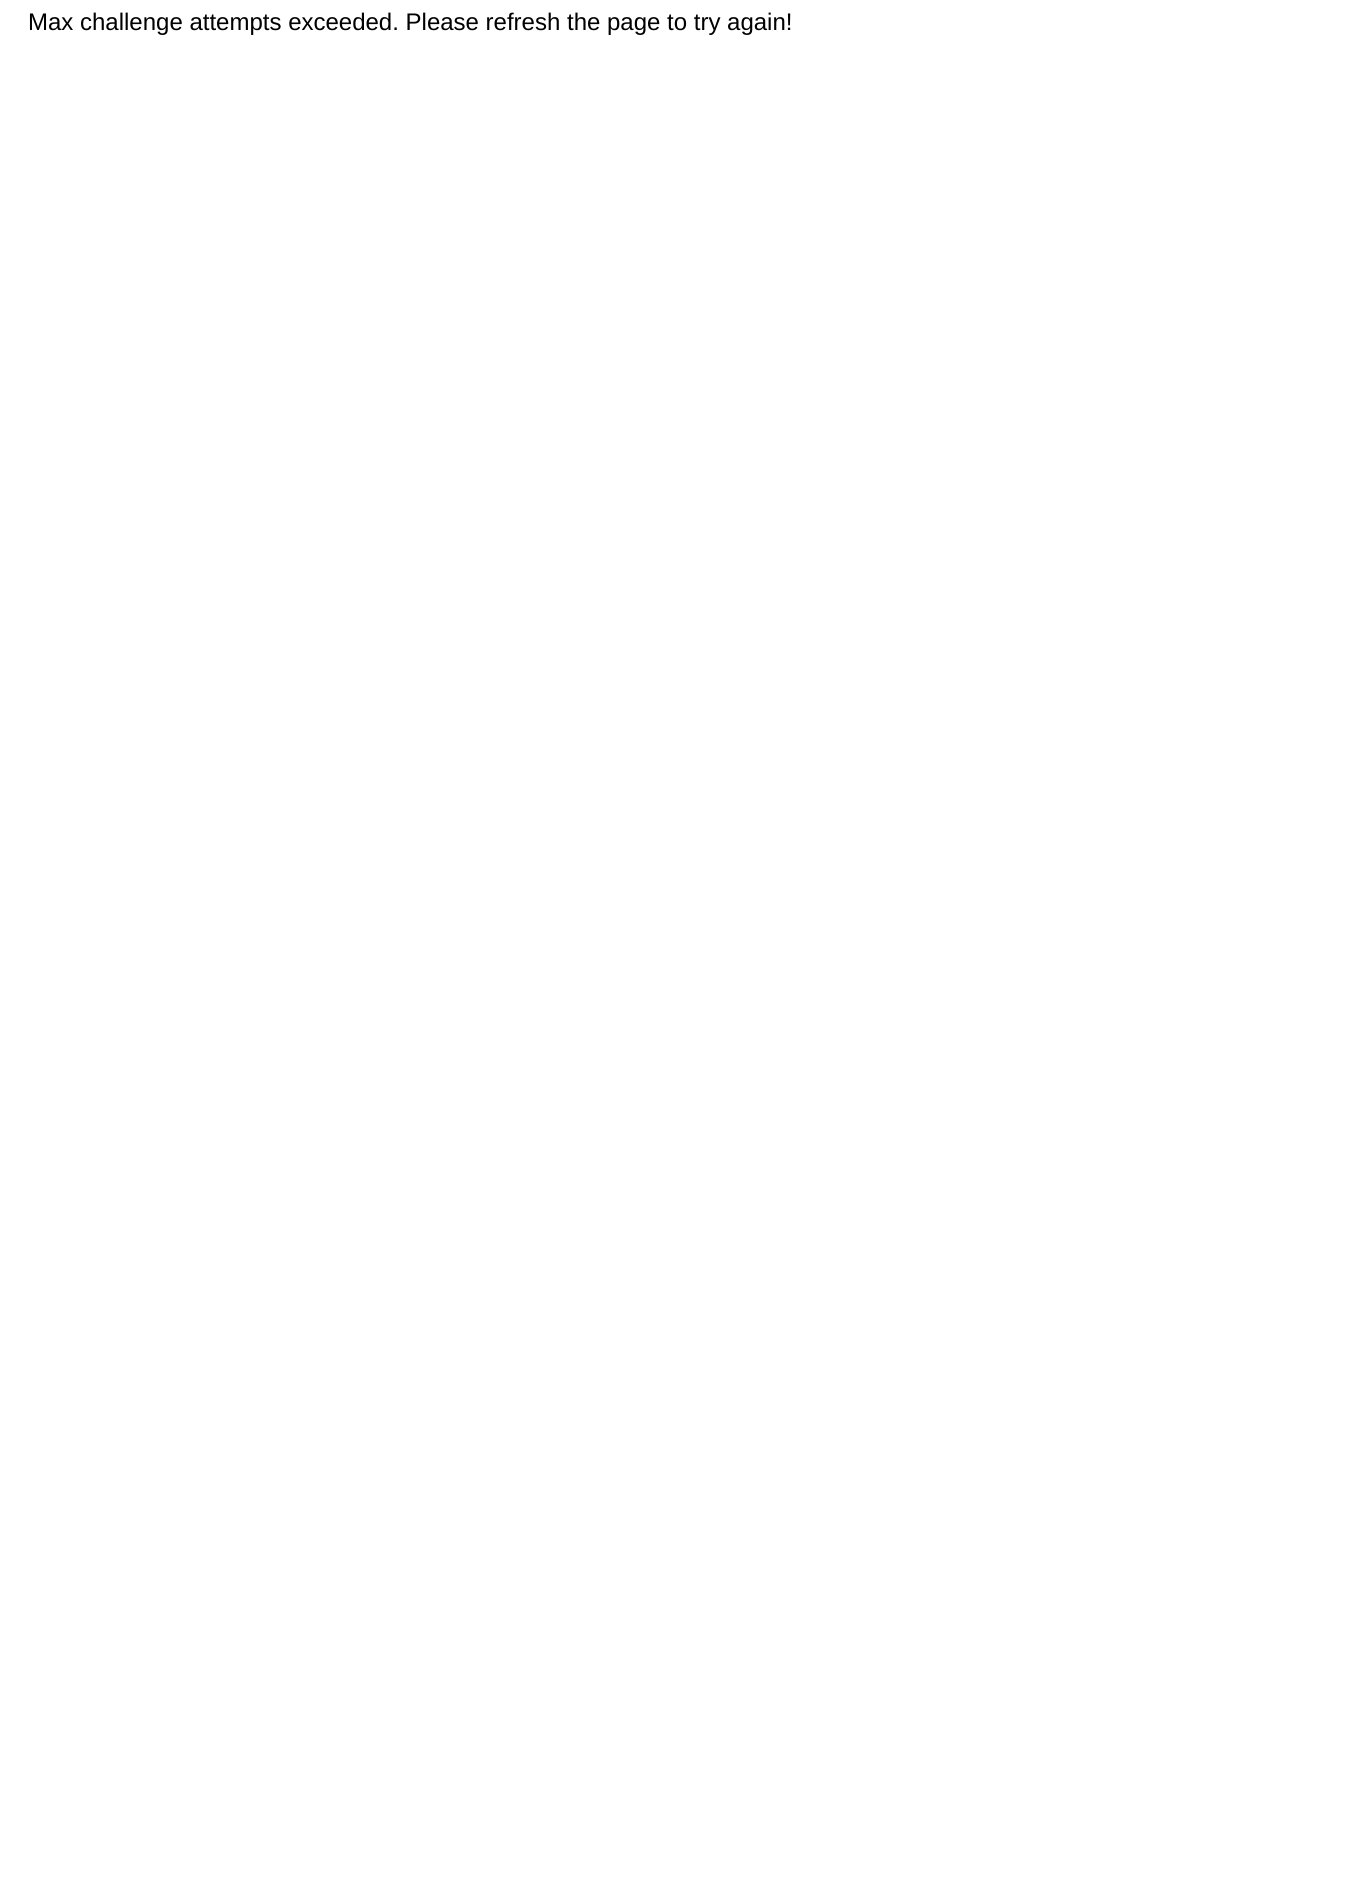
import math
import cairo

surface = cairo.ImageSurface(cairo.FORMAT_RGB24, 1358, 1884)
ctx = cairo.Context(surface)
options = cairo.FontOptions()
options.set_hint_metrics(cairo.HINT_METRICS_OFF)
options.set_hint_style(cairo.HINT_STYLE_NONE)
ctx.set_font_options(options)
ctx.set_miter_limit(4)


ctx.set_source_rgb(1, 1, 1)
ctx.paint()
ctx.select_font_face("Liberation Sans")
ctx.set_font_size(24)
ctx.set_source_rgb(0, 0, 0)
ctx.move_to(28, 30)
ctx.show_text("Max challenge attempts exceeded. Please refresh the page to try again!")
surface.write_to_png("page.png")
